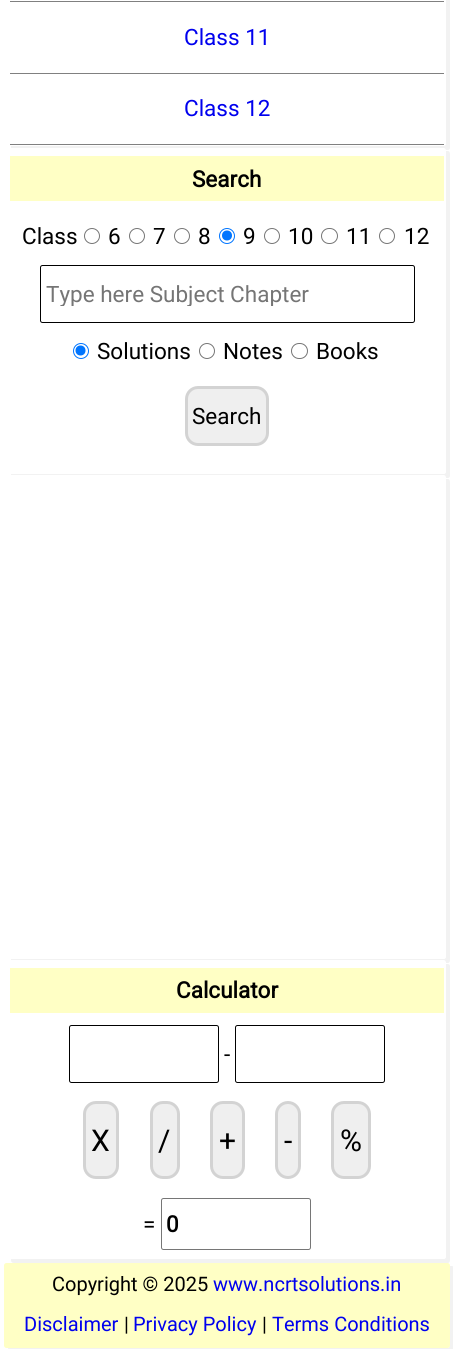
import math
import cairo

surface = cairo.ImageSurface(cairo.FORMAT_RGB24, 453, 1349)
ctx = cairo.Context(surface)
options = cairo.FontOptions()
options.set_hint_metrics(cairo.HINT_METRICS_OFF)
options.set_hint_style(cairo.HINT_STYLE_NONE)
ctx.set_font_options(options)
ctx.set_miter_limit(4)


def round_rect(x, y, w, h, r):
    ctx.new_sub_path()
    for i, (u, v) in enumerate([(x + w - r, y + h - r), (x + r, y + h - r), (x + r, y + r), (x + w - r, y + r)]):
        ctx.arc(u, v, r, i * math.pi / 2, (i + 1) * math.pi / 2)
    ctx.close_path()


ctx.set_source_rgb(1, 1, 1)
ctx.paint()
ctx.set_source_rgb(0.949, 0.949, 0.949)
ctx.new_path()
ctx.move_to(11, 146)
ctx.line_to(11, 148)
ctx.curve_to(11, 149, 12, 150, 14, 150)
ctx.line_to(448, 150)
ctx.curve_to(449, 150, 450, 149, 450, 148)
ctx.line_to(450, -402)
ctx.curve_to(450, -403, 449, -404, 448, -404)
ctx.line_to(446, -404)
ctx.line_to(446, 144)
ctx.curve_to(446, 145, 445, 146, 444, 146)
ctx.close_path()
ctx.fill()
ctx.set_source_rgb(0.502, 0.502, 0.502)
ctx.rectangle(10, 1, 434, 1)
ctx.fill()
ctx.rectangle(10, 73, 434, 1)
ctx.fill()
ctx.select_font_face("Roboto")
ctx.set_font_size(22.5)
ctx.set_source_rgb(0, 0, 0.933)
ctx.move_to(184, 45)
ctx.show_text("Class 11")
ctx.set_source_rgb(0.502, 0.502, 0.502)
ctx.rectangle(10, 144, 434, 1)
ctx.fill()
ctx.set_source_rgb(0, 0, 0.933)
ctx.move_to(184, 116)
ctx.show_text("Class 12")
ctx.set_source_rgb(0.949, 0.949, 0.949)
ctx.new_path()
ctx.move_to(11, 474)
ctx.line_to(11, 476)
ctx.curve_to(11, 477, 12, 478, 14, 478)
ctx.line_to(448, 478)
ctx.curve_to(449, 478, 450, 477, 450, 476)
ctx.line_to(450, 154)
ctx.curve_to(450, 152, 449, 151, 448, 151)
ctx.line_to(446, 151)
ctx.line_to(446, 471)
ctx.curve_to(446, 473, 445, 474, 444, 474)
ctx.close_path()
ctx.fill()
ctx.set_source_rgb(1, 1, 1)
round_rect(8, 148, 438, 326, 2.5)
ctx.fill()
ctx.set_source_rgb(1, 1, 0.773)
ctx.rectangle(10, 156, 434, 45)
ctx.fill()
ctx.select_font_face("Roboto", cairo.FONT_SLANT_NORMAL, cairo.FONT_WEIGHT_BOLD)
ctx.set_source_rgb(0, 0, 0)
ctx.move_to(192, 187)
ctx.show_text("Search")
ctx.select_font_face("Roboto")
ctx.move_to(22, 244)
ctx.show_text("Class")
ctx.new_path()
ctx.arc(92, 236, 7.5, 0, 2 * math.pi)
ctx.set_source_rgb(0.463, 0.463, 0.463)
ctx.set_line_width(1)
ctx.stroke()
ctx.set_source_rgb(0, 0, 0)
ctx.move_to(108, 244)
ctx.show_text("6")
ctx.new_path()
ctx.arc(137, 236, 7.5, 0, 2 * math.pi)
ctx.set_source_rgb(0.463, 0.463, 0.463)
ctx.stroke()
ctx.set_source_rgb(0, 0, 0)
ctx.move_to(153, 244)
ctx.show_text("7")
ctx.new_path()
ctx.arc(182, 236, 7.5, 0, 2 * math.pi)
ctx.set_source_rgb(0.463, 0.463, 0.463)
ctx.stroke()
ctx.set_source_rgb(0, 0, 0)
ctx.move_to(198, 244)
ctx.show_text("8")
ctx.new_path()
ctx.arc(227, 236, 7.5, 0, 2 * math.pi)
ctx.set_source_rgb(0, 0.459, 1)
ctx.stroke()
ctx.arc(227, 235.5, 5, 0, 2 * math.pi)
ctx.fill()
ctx.set_source_rgb(0, 0, 0)
ctx.move_to(243, 244)
ctx.show_text("9")
ctx.new_path()
ctx.arc(272, 236, 7.5, 0, 2 * math.pi)
ctx.set_source_rgb(0.463, 0.463, 0.463)
ctx.stroke()
ctx.set_source_rgb(0, 0, 0)
ctx.move_to(288, 244)
ctx.show_text("10")
round_rect(321.5, 228.5, 16, 15, 7.5)
ctx.set_source_rgb(0.463, 0.463, 0.463)
ctx.stroke()
ctx.set_source_rgb(0, 0, 0)
ctx.move_to(346, 244)
ctx.show_text("11")
ctx.new_path()
ctx.arc(387, 236, 7.5, 0, 2 * math.pi)
ctx.set_source_rgb(0.463, 0.463, 0.463)
ctx.stroke()
ctx.set_source_rgb(0, 0, 0)
ctx.move_to(404, 244)
ctx.show_text("12")
round_rect(40.5, 265.5, 374, 57, 2)
ctx.stroke()
ctx.save()
ctx.rectangle(46, 280, 363, 26)
ctx.clip()
ctx.set_source_rgb(0.459, 0.459, 0.459)
ctx.move_to(46, 302)
ctx.show_text("Type here Subject Chapter")
ctx.restore()
ctx.new_path()
ctx.arc(81, 351, 7.5, 0, 2 * math.pi)
ctx.set_source_rgb(0, 0.459, 1)
ctx.stroke()
ctx.arc(80.5, 350.5, 5, 0, 2 * math.pi)
ctx.fill()
ctx.set_source_rgb(0, 0, 0)
ctx.move_to(97, 359)
ctx.show_text("Solutions")
ctx.new_path()
ctx.arc(207, 351, 7.5, 0, 2 * math.pi)
ctx.set_source_rgb(0.463, 0.463, 0.463)
ctx.stroke()
ctx.set_source_rgb(0, 0, 0)
ctx.move_to(223, 359)
ctx.show_text("Notes")
round_rect(291.5, 343.5, 16, 15, 7.5)
ctx.set_source_rgb(0.463, 0.463, 0.463)
ctx.stroke()
ctx.set_source_rgb(0, 0, 0)
ctx.move_to(316, 359)
ctx.show_text("Books")
ctx.set_source_rgb(0.937, 0.937, 0.937)
round_rect(186.5, 387.5, 81, 57, 11.5)
ctx.fill_preserve()
ctx.set_source_rgb(0.827, 0.827, 0.827)
ctx.set_line_width(3)
ctx.stroke()
ctx.set_source_rgb(0, 0, 0)
ctx.move_to(192, 424)
ctx.show_text("Search")
ctx.set_source_rgb(0.949, 0.949, 0.949)
ctx.new_path()
ctx.move_to(11, 959)
ctx.line_to(11, 960)
ctx.curve_to(11, 962, 12, 963, 14, 963)
ctx.line_to(448, 963)
ctx.curve_to(449, 963, 450, 962, 450, 960)
ctx.line_to(450, 482)
ctx.curve_to(450, 480, 449, 479, 448, 479)
ctx.line_to(446, 479)
ctx.line_to(446, 956)
ctx.curve_to(446, 958, 445, 959, 444, 959)
ctx.close_path()
ctx.fill()
ctx.set_source_rgb(1, 1, 1)
round_rect(8, 475, 438, 484, 2.5)
ctx.fill()
ctx.set_source_rgb(0.949, 0.949, 0.949)
ctx.new_path()
ctx.move_to(11, 1259)
ctx.line_to(11, 1260)
ctx.curve_to(11, 1262, 12, 1263, 14, 1263)
ctx.line_to(448, 1263)
ctx.curve_to(449, 1263, 450, 1262, 450, 1260)
ctx.line_to(450, 966)
ctx.curve_to(450, 965, 449, 964, 448, 964)
ctx.line_to(446, 964)
ctx.line_to(446, 1256)
ctx.curve_to(446, 1258, 445, 1259, 444, 1259)
ctx.close_path()
ctx.fill()
ctx.set_source_rgb(1, 1, 1)
round_rect(8, 960, 438, 299, 2.5)
ctx.fill()
ctx.set_source_rgb(1, 1, 0.773)
ctx.rectangle(10, 968, 434, 45)
ctx.fill()
ctx.select_font_face("Roboto", cairo.FONT_SLANT_NORMAL, cairo.FONT_WEIGHT_BOLD)
ctx.set_source_rgb(0, 0, 0)
ctx.move_to(176, 998)
ctx.show_text("Calculator")
round_rect(69.5, 1025.5, 149, 57, 2)
ctx.set_line_width(1)
ctx.stroke()
ctx.select_font_face("Roboto")
ctx.move_to(224, 1062)
ctx.show_text("-")
round_rect(235.5, 1025.5, 149, 57, 2)
ctx.stroke()
ctx.set_source_rgb(0.937, 0.937, 0.937)
round_rect(84.5, 1102.5, 33, 75, 11.5)
ctx.fill_preserve()
ctx.set_source_rgb(0.827, 0.827, 0.827)
ctx.set_line_width(3)
ctx.stroke()
ctx.set_font_size(30)
ctx.set_source_rgb(0, 0, 0)
ctx.move_to(91, 1151)
ctx.show_text("X")
ctx.set_source_rgb(0.937, 0.937, 0.937)
round_rect(151.5, 1102.5, 27, 75, 11.5)
ctx.fill_preserve()
ctx.set_source_rgb(0.827, 0.827, 0.827)
ctx.stroke()
ctx.set_source_rgb(0, 0, 0)
ctx.move_to(158, 1151)
ctx.show_text("/")
ctx.set_source_rgb(0.937, 0.937, 0.937)
round_rect(211.5, 1102.5, 32, 75, 11.5)
ctx.fill_preserve()
ctx.set_source_rgb(0.827, 0.827, 0.827)
ctx.stroke()
ctx.set_source_rgb(0, 0, 0)
ctx.move_to(219, 1151)
ctx.show_text("+")
ctx.set_source_rgb(0.937, 0.937, 0.937)
round_rect(276.5, 1102.5, 23, 75, 11.5)
ctx.fill_preserve()
ctx.set_source_rgb(0.827, 0.827, 0.827)
ctx.stroke()
ctx.set_source_rgb(0, 0, 0)
ctx.move_to(284, 1151)
ctx.show_text("-")
ctx.set_source_rgb(0.937, 0.937, 0.937)
round_rect(332.5, 1102.5, 37, 75, 11.5)
ctx.fill_preserve()
ctx.set_source_rgb(0.827, 0.827, 0.827)
ctx.stroke()
ctx.set_source_rgb(0, 0, 0)
ctx.move_to(340, 1151)
ctx.show_text("%")
ctx.set_font_size(22.5)
ctx.move_to(143, 1232)
ctx.show_text("=")
round_rect(161.5, 1198.5, 149, 51, 2)
ctx.set_source_rgb(0.463, 0.463, 0.463)
ctx.set_line_width(1)
ctx.stroke()
ctx.select_font_face("Roboto", cairo.FONT_SLANT_NORMAL, cairo.FONT_WEIGHT_BOLD)
ctx.set_source_rgb(0, 0, 0)
ctx.move_to(166, 1232)
ctx.show_text("0")
ctx.set_source_rgb(0.949, 0.949, 0.949)
ctx.new_path()
ctx.move_to(8, 1348)
ctx.curve_to(8, 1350, 9, 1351, 10, 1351)
ctx.line_to(452, 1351)
ctx.curve_to(453, 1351, 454, 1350, 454, 1348)
ctx.line_to(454, 1268)
ctx.curve_to(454, 1267, 453, 1266, 452, 1266)
ctx.line_to(450, 1266)
ctx.line_to(450, 1345)
ctx.curve_to(450, 1346, 449, 1348, 448, 1348)
ctx.close_path()
ctx.fill()
ctx.set_source_rgb(1, 1, 0.773)
round_rect(4, 1263, 446, 85, 2.5)
ctx.fill()
ctx.select_font_face("Roboto")
ctx.set_font_size(20)
ctx.set_source_rgb(0, 0, 0)
ctx.move_to(52, 1291)
ctx.show_text("Copyright © 2025")
ctx.set_source_rgb(0, 0, 0.933)
ctx.move_to(213, 1291)
ctx.show_text("www.ncrtsolutions.in")
ctx.move_to(24, 1331)
ctx.show_text("Disclaimer")
ctx.set_source_rgb(0, 0, 0)
ctx.move_to(124, 1331)
ctx.show_text("|")
ctx.set_source_rgb(0, 0, 0.933)
ctx.move_to(133, 1331)
ctx.show_text("Privacy Policy")
ctx.set_source_rgb(0, 0, 0)
ctx.move_to(262, 1331)
ctx.show_text("|")
ctx.set_source_rgb(0, 0, 0.933)
ctx.move_to(272, 1331)
ctx.show_text("Terms Conditions")
surface.write_to_png("page.png")
